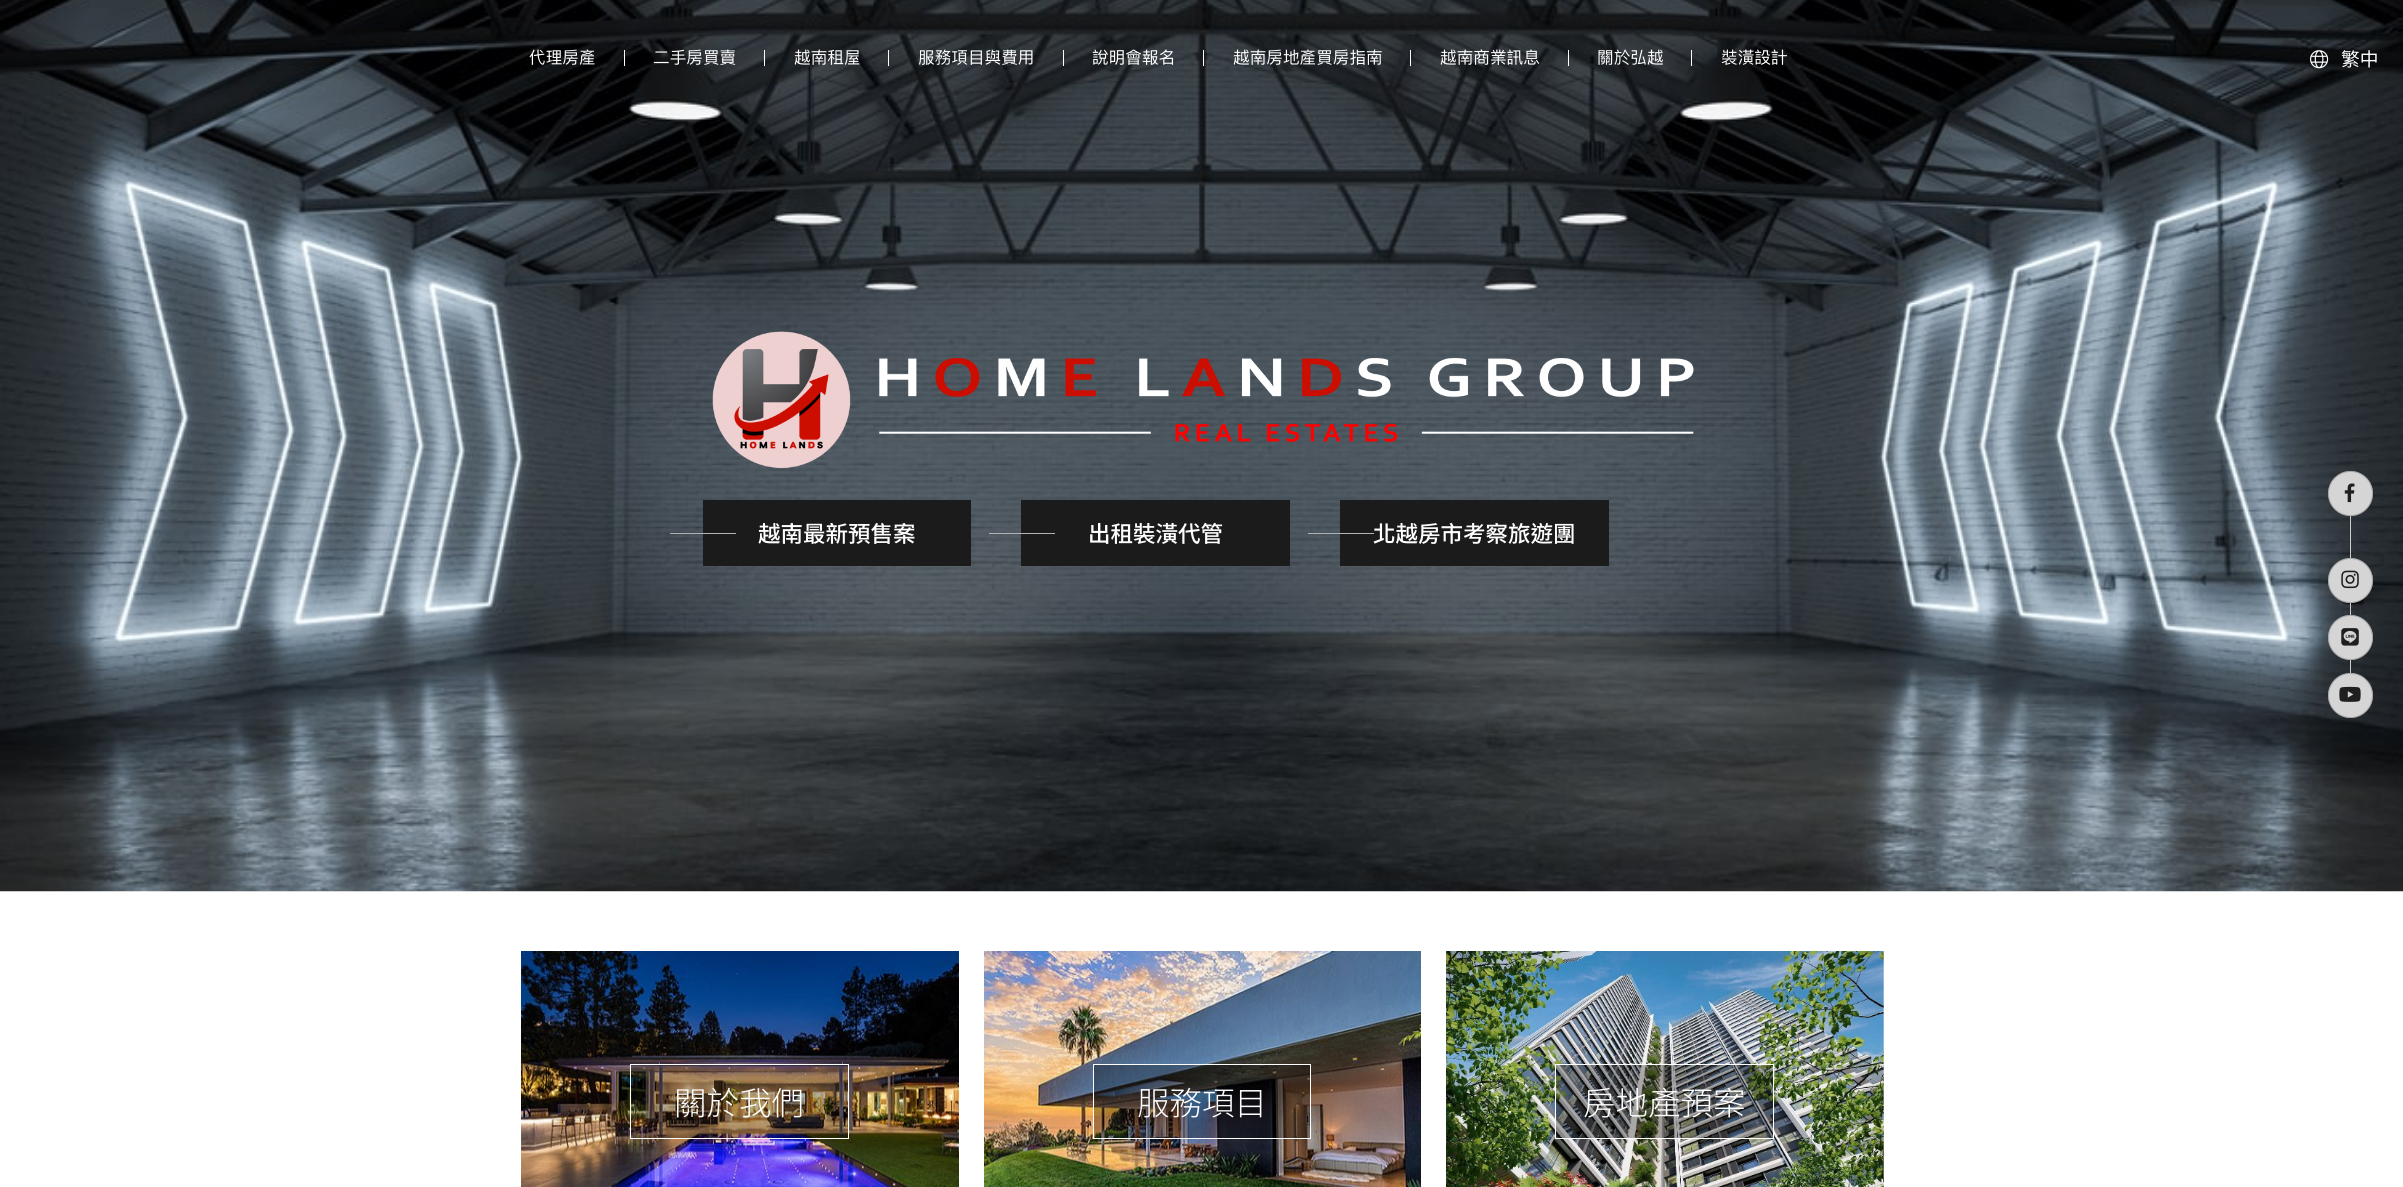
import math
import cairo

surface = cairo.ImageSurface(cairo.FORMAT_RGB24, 2403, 1187)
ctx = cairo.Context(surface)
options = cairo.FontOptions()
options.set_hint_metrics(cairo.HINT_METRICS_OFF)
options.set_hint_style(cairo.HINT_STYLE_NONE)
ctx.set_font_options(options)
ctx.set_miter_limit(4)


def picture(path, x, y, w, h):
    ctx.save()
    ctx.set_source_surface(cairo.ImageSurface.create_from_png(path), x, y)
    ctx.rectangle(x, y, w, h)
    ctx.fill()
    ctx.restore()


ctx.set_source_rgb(1, 1, 1)
ctx.paint()
picture("img2.png", 0, 0, 2403, 892)
ctx.select_font_face("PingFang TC")
ctx.set_font_size(18.75)
ctx.set_source_rgb(1, 1, 1)
ctx.move_to(529, 64)
ctx.show_text("代理房產")
ctx.rectangle(624, 50, 1, 16)
ctx.fill()
ctx.move_to(653, 64)
ctx.show_text("二手房買賣")
ctx.rectangle(764, 50, 1, 16)
ctx.fill()
ctx.move_to(794, 64)
ctx.show_text("越南租屋")
ctx.rectangle(888, 50, 1, 16)
ctx.fill()
ctx.move_to(918, 64)
ctx.show_text("服務項目與費用")
ctx.rectangle(1063, 50, 1, 16)
ctx.fill()
ctx.move_to(1092, 64)
ctx.show_text("說明會報名")
ctx.rectangle(1203, 50, 1, 16)
ctx.fill()
ctx.move_to(1233, 64)
ctx.show_text("越南房地產買房指南")
ctx.rectangle(1410, 50, 1, 16)
ctx.fill()
ctx.move_to(1440, 64)
ctx.show_text("越南商業訊息")
ctx.rectangle(1568, 50, 1, 16)
ctx.fill()
ctx.move_to(1597, 64)
ctx.show_text("關於弘越")
ctx.rectangle(1691, 50, 1, 16)
ctx.fill()
ctx.move_to(1721, 64)
ctx.show_text("裝潢設計")
picture("img1.png", 2310, 50, 19, 19)
ctx.select_font_face("Noto Sans TC")
ctx.move_to(2341, 66)
ctx.show_text("繁中")
picture("img3.png", 712, 331, 982, 138)
ctx.set_source_rgb(0.106, 0.106, 0.106)
ctx.rectangle(703, 500, 268, 66)
ctx.fill()
ctx.set_source_rgb(0.702, 0.702, 0.702)
ctx.rectangle(670, 533, 66, 1)
ctx.fill()
ctx.select_font_face("Noto Sans TC Medium")
ctx.set_font_size(22.5)
ctx.set_source_rgb(1, 1, 1)
ctx.move_to(758, 542)
ctx.show_text("越南最新預售案")
ctx.set_source_rgb(0.106, 0.106, 0.106)
ctx.rectangle(1021, 500, 269, 66)
ctx.fill()
ctx.set_source_rgb(0.702, 0.702, 0.702)
ctx.rectangle(989, 533, 66, 1)
ctx.fill()
ctx.set_source_rgb(1, 1, 1)
ctx.move_to(1088, 542)
ctx.show_text("出租裝潢代管")
ctx.set_source_rgb(0.106, 0.106, 0.106)
ctx.rectangle(1340, 500, 269, 66)
ctx.fill()
ctx.set_source_rgb(1, 1, 1)
ctx.move_to(1373, 542)
ctx.show_text("北越房市考察旅遊團")
ctx.set_source_rgb(0.702, 0.702, 0.702)
ctx.rectangle(1308, 533, 66, 1)
ctx.fill()
picture("img4.png", 521, 951, 438, 236)
ctx.set_source_rgba(0, 0, 0, 0.3)
ctx.rectangle(630.5, 1064.5, 218, 74)
ctx.fill_preserve()
ctx.set_source_rgb(1, 1, 1)
ctx.set_line_width(1)
ctx.stroke()
ctx.select_font_face("Noto Sans TC Light")
ctx.set_font_size(32.5)
ctx.move_to(674, 1115)
ctx.show_text("關於我們")
picture("img5.png", 984, 951, 437, 236)
ctx.set_source_rgba(0, 0, 0, 0.3)
ctx.rectangle(1093.5, 1064.5, 217, 74)
ctx.fill_preserve()
ctx.set_source_rgb(1, 1, 1)
ctx.stroke()
ctx.move_to(1137, 1115)
ctx.show_text("服務項目")
picture("img6.png", 1446, 951, 438, 236)
ctx.set_source_rgba(0, 0, 0, 0.3)
ctx.rectangle(1555.5, 1064.5, 218, 74)
ctx.fill_preserve()
ctx.set_source_rgb(1, 1, 1)
ctx.stroke()
ctx.move_to(1583, 1115)
ctx.show_text("房地產預案")
ctx.set_source_rgb(0.835, 0.835, 0.835)
ctx.new_path()
ctx.arc(2350.5, 493.5, 22.5, 0, 2 * math.pi)
ctx.fill()
ctx.arc(2350.5, 493.5, 22, 0, 2 * math.pi)
ctx.set_source_rgba(0.506, 0.506, 0.506, 0.5)
ctx.stroke()
picture("img7.png", 2344, 483, 11, 20)
ctx.set_source_rgb(0.8, 0.8, 0.8)
ctx.rectangle(2350, 516, 1, 157)
ctx.fill()
ctx.set_source_rgb(0.835, 0.835, 0.835)
ctx.arc(2350.5, 580.5, 22.5, 0, 2 * math.pi)
ctx.fill()
ctx.arc(2350.5, 580.5, 22, 0, 2 * math.pi)
ctx.set_source_rgba(0.506, 0.506, 0.506, 0.5)
ctx.stroke()
picture("img8.png", 2341, 570, 18, 19)
ctx.set_source_rgb(0.835, 0.835, 0.835)
ctx.arc(2350.5, 637.5, 22.5, 0, 2 * math.pi)
ctx.fill()
ctx.arc(2350.5, 637.5, 22, 0, 2 * math.pi)
ctx.set_source_rgba(0.506, 0.506, 0.506, 0.5)
ctx.stroke()
picture("img9.png", 2341, 628, 18, 18)
ctx.set_source_rgb(0.835, 0.835, 0.835)
ctx.arc(2350.5, 695.5, 22.5, 0, 2 * math.pi)
ctx.fill()
ctx.arc(2350.5, 695.5, 22, 0, 2 * math.pi)
ctx.set_source_rgba(0.506, 0.506, 0.506, 0.5)
ctx.stroke()
picture("img10.png", 2339, 686, 22, 16)
surface.write_to_png("page.png")
